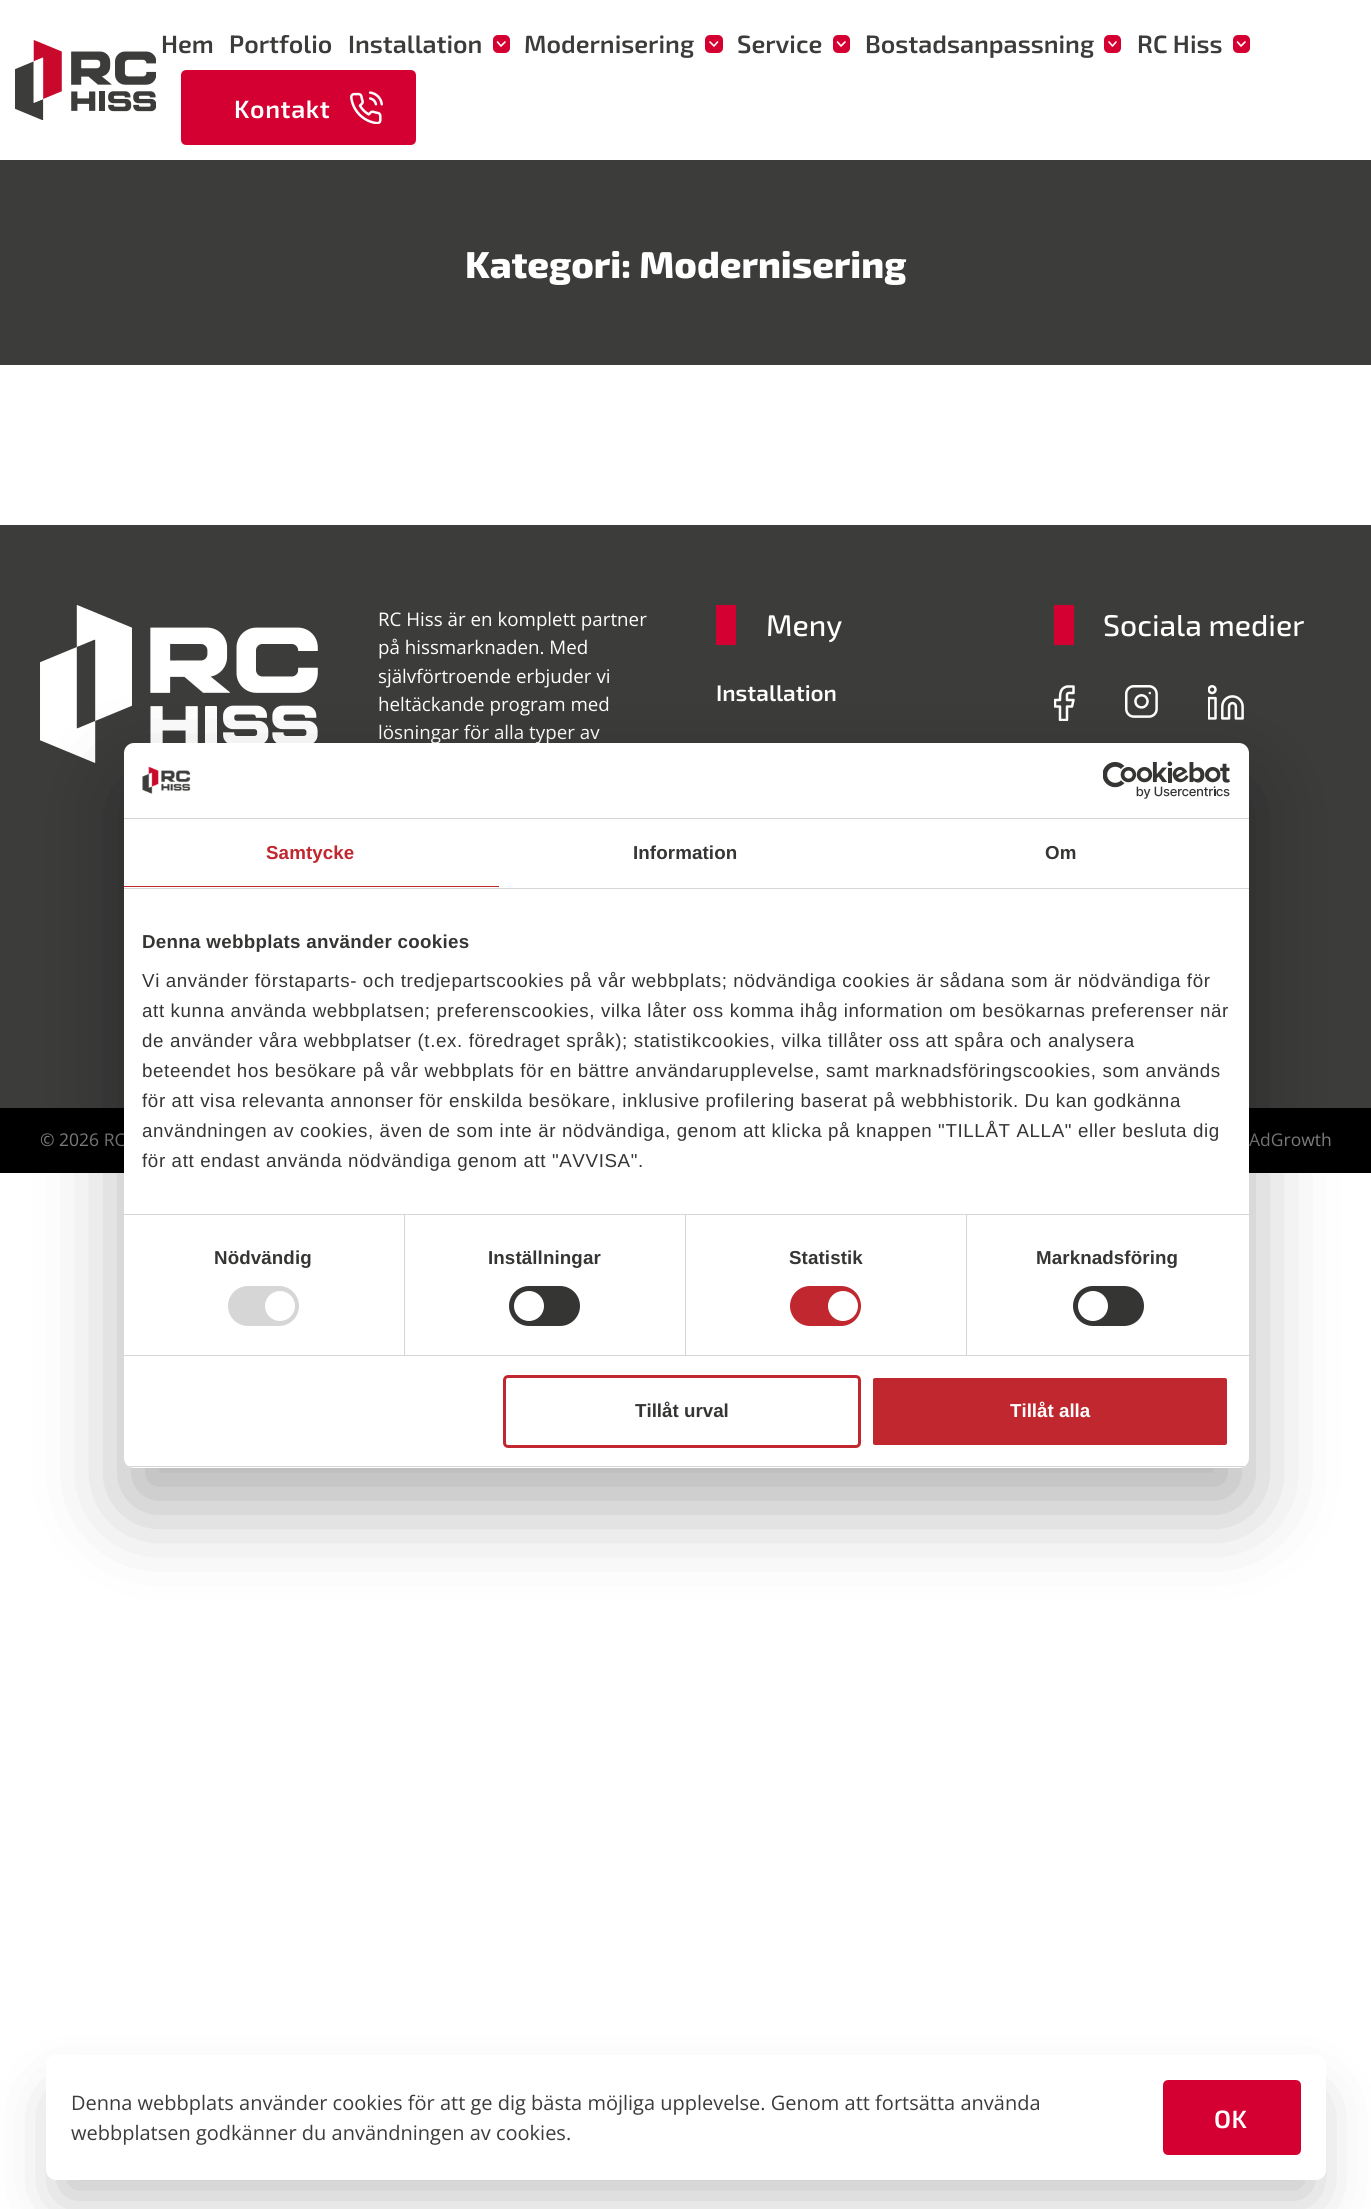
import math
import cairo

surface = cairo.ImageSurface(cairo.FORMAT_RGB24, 1371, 2209)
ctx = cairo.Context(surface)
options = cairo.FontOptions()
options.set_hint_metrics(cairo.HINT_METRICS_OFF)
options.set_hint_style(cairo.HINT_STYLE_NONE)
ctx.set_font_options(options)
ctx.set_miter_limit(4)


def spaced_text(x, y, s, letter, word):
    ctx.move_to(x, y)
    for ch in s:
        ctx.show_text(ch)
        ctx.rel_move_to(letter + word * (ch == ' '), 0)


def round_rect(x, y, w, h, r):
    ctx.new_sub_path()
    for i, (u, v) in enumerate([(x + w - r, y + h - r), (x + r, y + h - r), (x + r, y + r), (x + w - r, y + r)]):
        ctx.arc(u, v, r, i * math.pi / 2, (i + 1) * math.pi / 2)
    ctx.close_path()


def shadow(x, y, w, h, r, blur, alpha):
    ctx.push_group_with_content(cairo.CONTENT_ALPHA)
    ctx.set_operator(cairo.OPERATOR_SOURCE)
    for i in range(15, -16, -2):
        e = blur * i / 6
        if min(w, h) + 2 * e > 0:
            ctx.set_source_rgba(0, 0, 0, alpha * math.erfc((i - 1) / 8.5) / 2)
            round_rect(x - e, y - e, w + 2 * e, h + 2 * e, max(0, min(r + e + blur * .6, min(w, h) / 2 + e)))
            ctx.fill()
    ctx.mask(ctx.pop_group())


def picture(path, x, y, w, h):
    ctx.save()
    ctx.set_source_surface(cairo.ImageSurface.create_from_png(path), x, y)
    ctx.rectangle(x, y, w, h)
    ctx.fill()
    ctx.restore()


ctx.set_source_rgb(1, 1, 1)
ctx.paint()
picture("img1.png", 15, 40, 141, 80)
ctx.select_font_face("Exo 2 SemiBold")
ctx.set_font_size(25)
ctx.set_source_rgb(0.235, 0.235, 0.231)
ctx.move_to(161, 53)
ctx.show_text("Hem")
ctx.move_to(229, 53)
ctx.show_text("Portfolio")
ctx.move_to(348, 53)
ctx.show_text("Installation")
ctx.set_source_rgb(0.835, 0, 0.196)
round_rect(493, 35, 17, 18, 5)
ctx.fill()
ctx.new_path()
ctx.move_to(505, 42)
ctx.line_to(501, 46)
ctx.line_to(497.5, 42)
ctx.set_source_rgb(1, 1, 1)
ctx.set_line_width(1.6)
ctx.set_line_cap(cairo.LINE_CAP_ROUND)
ctx.set_line_join(cairo.LINE_JOIN_ROUND)
ctx.stroke()
ctx.set_source_rgb(0.235, 0.235, 0.231)
ctx.move_to(524, 53)
ctx.show_text("Modernisering")
ctx.set_source_rgb(0.835, 0, 0.196)
round_rect(705, 35, 18, 18, 5)
ctx.fill()
ctx.new_path()
ctx.move_to(717.5, 42)
ctx.line_to(714, 46)
ctx.line_to(710, 42)
ctx.set_source_rgb(1, 1, 1)
ctx.stroke()
ctx.set_source_rgb(0.235, 0.235, 0.231)
ctx.move_to(737, 53)
ctx.show_text("Service")
ctx.set_source_rgb(0.835, 0, 0.196)
round_rect(833, 35, 17, 18, 5)
ctx.fill()
ctx.new_path()
ctx.move_to(845, 42)
ctx.line_to(841, 46)
ctx.line_to(837.5, 42)
ctx.set_source_rgb(1, 1, 1)
ctx.stroke()
ctx.set_source_rgb(0.235, 0.235, 0.231)
ctx.move_to(865, 53)
ctx.show_text("Bostadsanpassning")
ctx.set_source_rgb(0.835, 0, 0.196)
round_rect(1104, 35, 17, 18, 5)
ctx.fill()
ctx.new_path()
ctx.move_to(1116, 42)
ctx.line_to(1112.5, 46)
ctx.line_to(1109, 42)
ctx.set_source_rgb(1, 1, 1)
ctx.stroke()
ctx.set_source_rgb(0.235, 0.235, 0.231)
ctx.move_to(1137, 53)
ctx.show_text("RC Hiss")
ctx.set_source_rgb(0.835, 0, 0.196)
round_rect(1233, 35, 17, 18, 5)
ctx.fill()
ctx.new_path()
ctx.move_to(1245, 42)
ctx.line_to(1241, 46)
ctx.line_to(1237.5, 42)
ctx.set_source_rgb(1, 1, 1)
ctx.stroke()
ctx.set_source_rgb(0.835, 0, 0.196)
round_rect(182.5, 71.5, 232, 72, 3.5)
ctx.fill_preserve()
ctx.set_line_width(3)
ctx.set_line_cap(cairo.LINE_CAP_BUTT)
ctx.set_line_join(cairo.LINE_JOIN_MITER)
ctx.stroke()
ctx.set_source_rgb(1, 1, 1)
spaced_text(234, 118, "Kontakt", 0.62, 0)
picture("img2.png", 350, 91, 33, 33)
ctx.set_source_rgb(0.235, 0.235, 0.231)
ctx.rectangle(0, 160, 1371, 205)
ctx.fill()
ctx.select_font_face("Exo 2 ExtraBold")
ctx.set_font_size(37.5)
ctx.set_source_rgb(1, 1, 1)
ctx.move_to(465, 278)
ctx.show_text("Kategori: Modernisering")
ctx.set_source_rgb(0.235, 0.235, 0.231)
ctx.rectangle(0, 525, 1371, 583)
ctx.fill()
picture("img3.png", 40, 605, 278, 158)
ctx.select_font_face("Open Sans")
ctx.set_font_size(18.75)
ctx.set_source_rgb(1, 1, 1)
ctx.move_to(378, 626)
ctx.show_text("RC Hiss är en komplett partner")
ctx.move_to(378, 654)
ctx.show_text("på hissmarknaden. Med")
ctx.move_to(378, 683)
ctx.show_text("självförtroende erbjuder vi")
ctx.move_to(378, 711)
ctx.show_text("heltäckande program med")
ctx.move_to(378, 739)
ctx.show_text("lösningar för alla typer av")
ctx.set_source_rgb(0.835, 0, 0.196)
ctx.rectangle(716, 605, 20, 40)
ctx.fill()
ctx.select_font_face("Exo 2 Medium")
ctx.set_font_size(30)
ctx.set_source_rgb(1, 1, 1)
ctx.move_to(766, 636)
ctx.show_text("Meny")
ctx.select_font_face("Exo 2 SemiBold")
ctx.set_font_size(22.5)
ctx.move_to(716, 701)
ctx.show_text("Installation")
ctx.set_source_rgb(0.835, 0, 0.196)
ctx.rectangle(1054, 605, 20, 40)
ctx.fill()
ctx.select_font_face("Exo 2 Medium")
ctx.set_font_size(30)
ctx.set_source_rgb(1, 1, 1)
ctx.move_to(1103, 636)
ctx.show_text("Sociala medier")
ctx.save()
ctx.rectangle(1054, 685, 21, 36)
ctx.clip()
ctx.new_path()
ctx.move_to(1073.5, 686.5)
ctx.line_to(1067, 686.5)
ctx.curve_to(1060, 688, 1060, 694, 1060, 700)
ctx.line_to(1055, 700)
ctx.line_to(1055, 706.5)
ctx.line_to(1060, 706.5)
ctx.line_to(1060, 720)
ctx.line_to(1067, 720)
ctx.line_to(1067, 706.5)
ctx.line_to(1072, 706.5)
ctx.line_to(1073.5, 700)
ctx.line_to(1067, 700)
ctx.curve_to(1067, 692, 1066, 693, 1073.5, 693)
ctx.close_path()
ctx.set_line_width(2.5)
ctx.set_line_cap(cairo.LINE_CAP_ROUND)
ctx.set_line_join(cairo.LINE_JOIN_ROUND)
ctx.stroke()
ctx.restore()
picture("img4.png", 1125, 685, 33, 33)
picture("img5.png", 1208, 685, 36, 35)
ctx.set_source_rgb(0, 0, 0)
ctx.rectangle(0, 1108, 1371, 65)
ctx.fill()
ctx.select_font_face("Open Sans")
ctx.set_font_size(17.5)
ctx.set_source_rgb(0.502, 0.502, 0.502)
ctx.move_to(40, 1146)
ctx.show_text("© 2026 RC")
ctx.move_to(1249, 1146)
ctx.show_text("AdGrowth")
ctx.set_source_rgb(0, 0, 0)
shadow(124, 783, 1125, 725, 10, 42.5, 0.3)
ctx.set_source_rgb(1, 1, 1)
round_rect(124, 743, 1125, 725, 10)
ctx.fill()
ctx.set_source_rgb(0.839, 0.839, 0.839)
ctx.rectangle(124, 818, 1125, 1)
ctx.fill()
picture("img6.png", 142, 766, 49, 28)
picture("img7.png", 1103, 761, 127, 38)
ctx.rectangle(124, 888, 1125, 1)
ctx.fill()
ctx.set_source_rgb(0.753, 0.153, 0.18)
ctx.rectangle(124, 886, 375, 1)
ctx.fill()
ctx.select_font_face("Liberation Sans", cairo.FONT_SLANT_NORMAL, cairo.FONT_WEIGHT_BOLD)
ctx.set_font_size(18.75)
spaced_text(266, 859, "Samtycke", 0.1, 0)
ctx.set_source_rgb(0.208, 0.208, 0.204)
spaced_text(633, 859, "Information", 0.1, 0)
spaced_text(1045, 859, "Om", 0.1, 0)
ctx.set_source_rgb(0.839, 0.839, 0.839)
ctx.rectangle(124, 1214, 1125, 1)
ctx.fill()
ctx.set_source_rgb(0.208, 0.208, 0.204)
spaced_text(142, 948, "Denna webbplats använder cookies", 0.3, 0)
ctx.select_font_face("Liberation Sans")
spaced_text(142, 987, "Vi använder förstaparts- och tredjepartscookies på vår webbplats; nödvändiga cookies är sådana som är nödvändiga för", 0.62, 0)
spaced_text(142, 1017, "att kunna använda webbplatsen; preferenscookies, vilka låter oss komma ihåg information om besökarnas preferenser när", 0.62, 0)
spaced_text(142, 1047, "de använder våra webbplatser (t.ex. föredraget språk); statistikcookies, vilka tillåter oss att spåra och analysera", 0.62, 0)
spaced_text(142, 1077, "beteendet hos besökare på vår webbplats för en bättre användarupplevelse, samt marknadsföringscookies, som används", 0.62, 0)
spaced_text(142, 1107, "för att visa relevanta annonser för enskilda besökare, inklusive profilering baserat på webbhistorik. Du kan godkänna", 0.62, 0)
spaced_text(142, 1137, "användningen av cookies, även de som inte är nödvändiga, genom att klicka på knappen \"TILLÅT ALLA\" eller besluta dig", 0.62, 0)
spaced_text(142, 1167, "för att endast använda nödvändiga genom att \"AVVISA\".", 0.62, 0)
ctx.set_source_rgb(0.839, 0.839, 0.839)
ctx.rectangle(124, 1355, 1125, 1)
ctx.fill()
ctx.rectangle(404, 1215, 1, 140)
ctx.fill()
ctx.select_font_face("Liberation Sans", cairo.FONT_SLANT_NORMAL, cairo.FONT_WEIGHT_BOLD)
ctx.set_source_rgb(0.208, 0.208, 0.204)
spaced_text(214, 1264, "Nödvändig", 0.1, 0)
ctx.set_source_rgb(0.839, 0.839, 0.839)
round_rect(228, 1286, 71, 40, 20)
ctx.fill()
ctx.set_source_rgb(1, 1, 1)
ctx.arc(280, 1306, 15, 0, 2 * math.pi)
ctx.fill()
ctx.set_source_rgb(0.839, 0.839, 0.839)
ctx.rectangle(685, 1215, 1, 140)
ctx.fill()
ctx.set_source_rgb(0.208, 0.208, 0.204)
spaced_text(488, 1264, "Inställningar", 0.1, 0)
round_rect(509, 1286, 71, 40, 20)
ctx.fill()
ctx.set_source_rgb(1, 1, 1)
ctx.arc(529, 1306, 15, 0, 2 * math.pi)
ctx.fill()
ctx.set_source_rgb(0.839, 0.839, 0.839)
ctx.rectangle(966, 1215, 1, 140)
ctx.fill()
ctx.set_source_rgb(0.208, 0.208, 0.204)
spaced_text(789, 1264, "Statistik", 0.1, 0)
ctx.set_source_rgb(0.753, 0.153, 0.18)
round_rect(790, 1286, 71, 40, 20)
ctx.fill()
ctx.set_source_rgb(1, 1, 1)
ctx.arc(843, 1306, 15, 0, 2 * math.pi)
ctx.fill()
ctx.set_source_rgb(0.208, 0.208, 0.204)
spaced_text(1036, 1264, "Marknadsföring", 0.1, 0)
round_rect(1073, 1286, 71, 40, 20)
ctx.fill()
ctx.set_source_rgb(1, 1, 1)
ctx.arc(1093, 1306, 15, 0, 2 * math.pi)
ctx.fill()
ctx.save()
round_rect(124, 743, 1125, 725, 10)
ctx.clip()
ctx.set_source_rgb(0.839, 0.839, 0.839)
ctx.rectangle(124, 1466, 1125, 1)
ctx.fill()
ctx.restore()
round_rect(504.5, 1376.5, 355, 70, 3.5)
ctx.set_source_rgb(0.753, 0.153, 0.18)
ctx.stroke()
ctx.set_source_rgb(0.208, 0.208, 0.204)
ctx.move_to(635, 1417)
ctx.show_text("Tillåt urval")
ctx.set_source_rgb(0.753, 0.153, 0.18)
round_rect(871.5, 1376.5, 357, 70, 3.5)
ctx.fill_preserve()
ctx.set_source_rgb(1, 1, 1)
ctx.stroke()
ctx.move_to(1010, 1417)
ctx.show_text("Tillåt alla")
ctx.set_source_rgb(0, 0, 0)
shadow(61, 2101, 1250, 95, 0, 31, 0.25)
ctx.set_source_rgb(1, 1, 1)
round_rect(46, 2055, 1280, 125, 10)
ctx.fill()
ctx.select_font_face("Open Sans")
ctx.set_font_size(20)
ctx.set_source_rgb(0.235, 0.235, 0.231)
ctx.move_to(71, 2110)
ctx.show_text("Denna webbplats använder cookies för att ge dig bästa möjliga upplevelse. Genom att fortsätta använda")
ctx.move_to(71, 2140)
ctx.show_text("webbplatsen godkänner du användningen av cookies.")
ctx.set_source_rgb(0.835, 0, 0.196)
round_rect(1164.5, 2081.5, 135, 72, 3.5)
ctx.fill_preserve()
ctx.stroke()
ctx.select_font_face("Exo 2 SemiBold")
ctx.set_font_size(25)
ctx.set_source_rgb(1, 1, 1)
spaced_text(1214, 2128, "OK", 0.62, 0)
surface.write_to_png("page.png")
